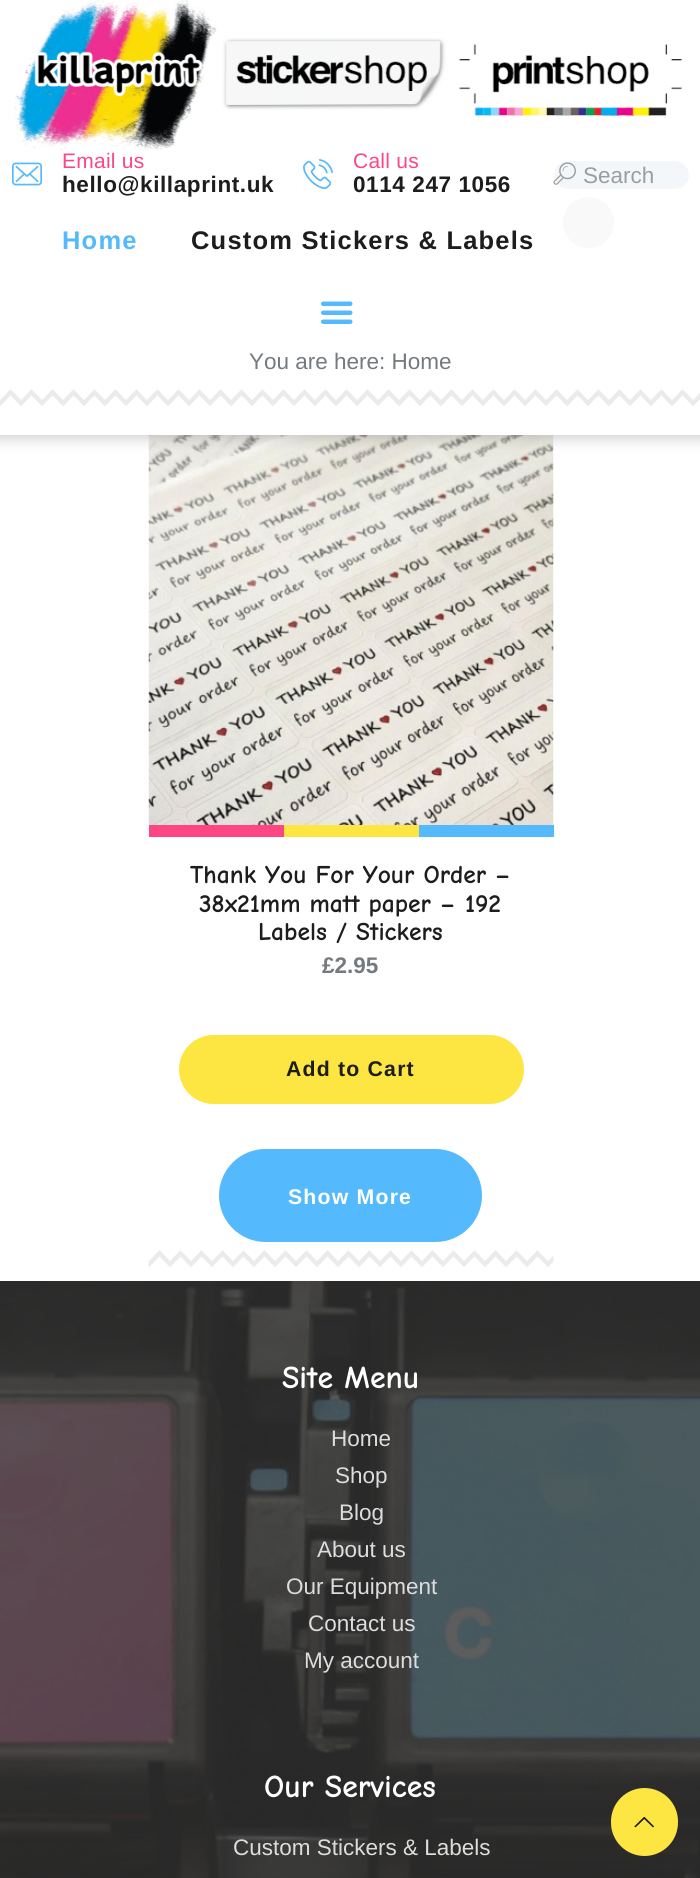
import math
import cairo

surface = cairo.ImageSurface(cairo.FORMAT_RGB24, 700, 1878)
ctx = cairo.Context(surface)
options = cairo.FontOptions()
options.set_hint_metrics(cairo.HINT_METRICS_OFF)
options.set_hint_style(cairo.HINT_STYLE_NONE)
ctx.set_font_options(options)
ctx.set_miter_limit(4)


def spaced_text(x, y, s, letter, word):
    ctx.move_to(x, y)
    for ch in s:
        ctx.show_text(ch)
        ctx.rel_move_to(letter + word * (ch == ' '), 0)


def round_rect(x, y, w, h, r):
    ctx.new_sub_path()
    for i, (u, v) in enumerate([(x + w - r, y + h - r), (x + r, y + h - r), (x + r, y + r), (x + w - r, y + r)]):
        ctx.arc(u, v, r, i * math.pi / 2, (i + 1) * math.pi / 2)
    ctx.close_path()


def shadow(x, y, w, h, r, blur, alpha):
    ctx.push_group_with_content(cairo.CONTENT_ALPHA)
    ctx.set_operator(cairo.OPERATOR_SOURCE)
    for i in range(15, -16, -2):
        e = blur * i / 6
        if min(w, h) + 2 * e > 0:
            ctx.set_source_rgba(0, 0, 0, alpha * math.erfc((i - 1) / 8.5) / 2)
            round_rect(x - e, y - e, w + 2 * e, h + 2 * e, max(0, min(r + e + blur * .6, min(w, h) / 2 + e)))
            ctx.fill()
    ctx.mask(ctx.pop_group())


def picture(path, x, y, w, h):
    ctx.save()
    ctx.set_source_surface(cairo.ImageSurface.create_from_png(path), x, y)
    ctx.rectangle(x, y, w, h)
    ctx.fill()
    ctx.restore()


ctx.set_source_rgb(1, 1, 1)
ctx.paint()
picture("img7.png", 148, 435, 406, 392)
ctx.set_source_rgb(0, 0, 0)
shadow(-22, 3, 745, 435, 0, 7.5, 0.2)
ctx.set_source_rgb(1, 1, 1)
ctx.rectangle(0, 0, 700, 435)
ctx.fill()
picture("img1.png", 14, 0, 668, 150)
picture("img2.png", 12, 162, 30, 24)
ctx.select_font_face("Liberation Sans")
ctx.set_font_size(21)
ctx.set_source_rgb(0.992, 0.275, 0.51)
spaced_text(62, 168, "Email us", 0.25, 0)
ctx.select_font_face("Liberation Sans", cairo.FONT_SLANT_NORMAL, cairo.FONT_WEIGHT_BOLD)
ctx.set_font_size(22.5)
ctx.set_source_rgb(0.114, 0.114, 0.114)
spaced_text(62, 192, "hello@killaprint.uk", 0.6, 0)
picture("img3.png", 303, 159, 30, 30)
ctx.select_font_face("Liberation Sans")
ctx.set_font_size(21)
ctx.set_source_rgb(0.992, 0.275, 0.51)
spaced_text(353, 168, "Call us", 0.25, 0)
ctx.select_font_face("Liberation Sans", cairo.FONT_SLANT_NORMAL, cairo.FONT_WEIGHT_BOLD)
ctx.set_font_size(22.5)
ctx.set_source_rgb(0.114, 0.114, 0.114)
spaced_text(353, 192, "0114 247 1056", 0.6, 0)
ctx.set_source_rgb(0.957, 0.965, 0.98)
round_rect(555, 162, 133, 26, 13)
ctx.fill_preserve()
ctx.stroke()
picture("img4.png", 553, 162, 23, 23)
ctx.select_font_face("Liberation Sans")
ctx.set_source_rgb(0.604, 0.616, 0.624)
ctx.move_to(583, 183)
ctx.show_text("Search")
ctx.select_font_face("Liberation Sans", cairo.FONT_SLANT_NORMAL, cairo.FONT_WEIGHT_BOLD)
ctx.set_font_size(25.5)
ctx.set_source_rgb(0.329, 0.725, 0.992)
spaced_text(62, 249, "Home", 1.2, 0)
ctx.set_source_rgb(0.114, 0.114, 0.114)
spaced_text(191, 249, "Custom Stickers & Labels", 1.2, 0)
ctx.set_source_rgb(0.973, 0.973, 0.973)
ctx.new_path()
ctx.arc(588.5, 222.5, 25.5, 0, 2 * math.pi)
ctx.fill()
picture("img5.png", 321, 301, 32, 23)
ctx.select_font_face("Liberation Sans")
ctx.set_font_size(22.5)
ctx.set_source_rgb(0.451, 0.478, 0.502)
ctx.move_to(249, 369)
ctx.show_text("You are here: Home")
picture("img6.png", 0, 388, 700, 19)
ctx.set_source_rgb(0.992, 0.275, 0.51)
ctx.rectangle(149, 825, 135, 12)
ctx.fill()
ctx.set_source_rgb(0.992, 0.902, 0.259)
ctx.rectangle(284, 825, 135, 12)
ctx.fill()
ctx.set_source_rgb(0.329, 0.725, 0.992)
ctx.rectangle(419, 825, 135, 12)
ctx.fill()
ctx.select_font_face("Comic Neue", cairo.FONT_SLANT_NORMAL, cairo.FONT_WEIGHT_BOLD)
ctx.set_font_size(25.5)
ctx.set_source_rgb(0.114, 0.114, 0.114)
ctx.move_to(190, 883)
ctx.show_text("Thank You For Your Order –")
ctx.move_to(199, 912)
ctx.show_text("38x21mm matt paper – 192")
ctx.move_to(258, 940)
ctx.show_text("Labels / Stickers")
ctx.select_font_face("Liberation Sans", cairo.FONT_SLANT_NORMAL, cairo.FONT_WEIGHT_BOLD)
ctx.set_font_size(22.5)
ctx.set_source_rgb(0.451, 0.478, 0.502)
ctx.move_to(322, 973)
ctx.show_text("£2.95")
ctx.set_source_rgb(0.992, 0.902, 0.259)
round_rect(179, 1035, 345, 69, 34.5)
ctx.fill()
ctx.set_font_size(21.25)
ctx.set_source_rgb(0.114, 0.114, 0.114)
spaced_text(286, 1076, "Add to Cart", 1.2, 0)
ctx.set_source_rgb(0.329, 0.725, 0.992)
round_rect(219, 1149, 263, 93, 46.5)
ctx.fill()
ctx.set_source_rgb(1, 1, 1)
spaced_text(288, 1204, "Show More", 1.2, 0)
picture("img8.png", 148, 1249, 406, 19)
picture("img9.png", 0, 1281, 700, 597)
ctx.select_font_face("Comic Neue", cairo.FONT_SLANT_NORMAL, cairo.FONT_WEIGHT_BOLD)
ctx.set_font_size(31.75)
ctx.move_to(282, 1388)
ctx.show_text("Site Menu")
ctx.select_font_face("Liberation Sans")
ctx.set_font_size(22.5)
ctx.set_source_rgb(0.867, 0.867, 0.867)
ctx.move_to(331, 1446)
ctx.show_text("Home")
ctx.move_to(335, 1483)
ctx.show_text("Shop")
ctx.move_to(339, 1520)
ctx.show_text("Blog")
ctx.move_to(317, 1557)
ctx.show_text("About us")
ctx.move_to(286, 1594)
ctx.show_text("Our Equipment")
ctx.move_to(308, 1631)
ctx.show_text("Contact us")
ctx.move_to(304, 1668)
ctx.show_text("My account")
ctx.select_font_face("Comic Neue", cairo.FONT_SLANT_NORMAL, cairo.FONT_WEIGHT_BOLD)
ctx.set_font_size(31.75)
ctx.set_source_rgb(1, 1, 1)
ctx.move_to(264, 1797)
ctx.show_text("Our Services")
ctx.select_font_face("Liberation Sans")
ctx.set_font_size(22.5)
ctx.set_source_rgb(0.867, 0.867, 0.867)
ctx.move_to(233, 1855)
ctx.show_text("Custom Stickers & Labels")
ctx.set_source_rgb(0.992, 0.902, 0.259)
round_rect(611, 1788, 67, 68, 33.5)
ctx.fill()
picture("img10.png", 634, 1816, 20, 12)
surface.write_to_png("page.png")
